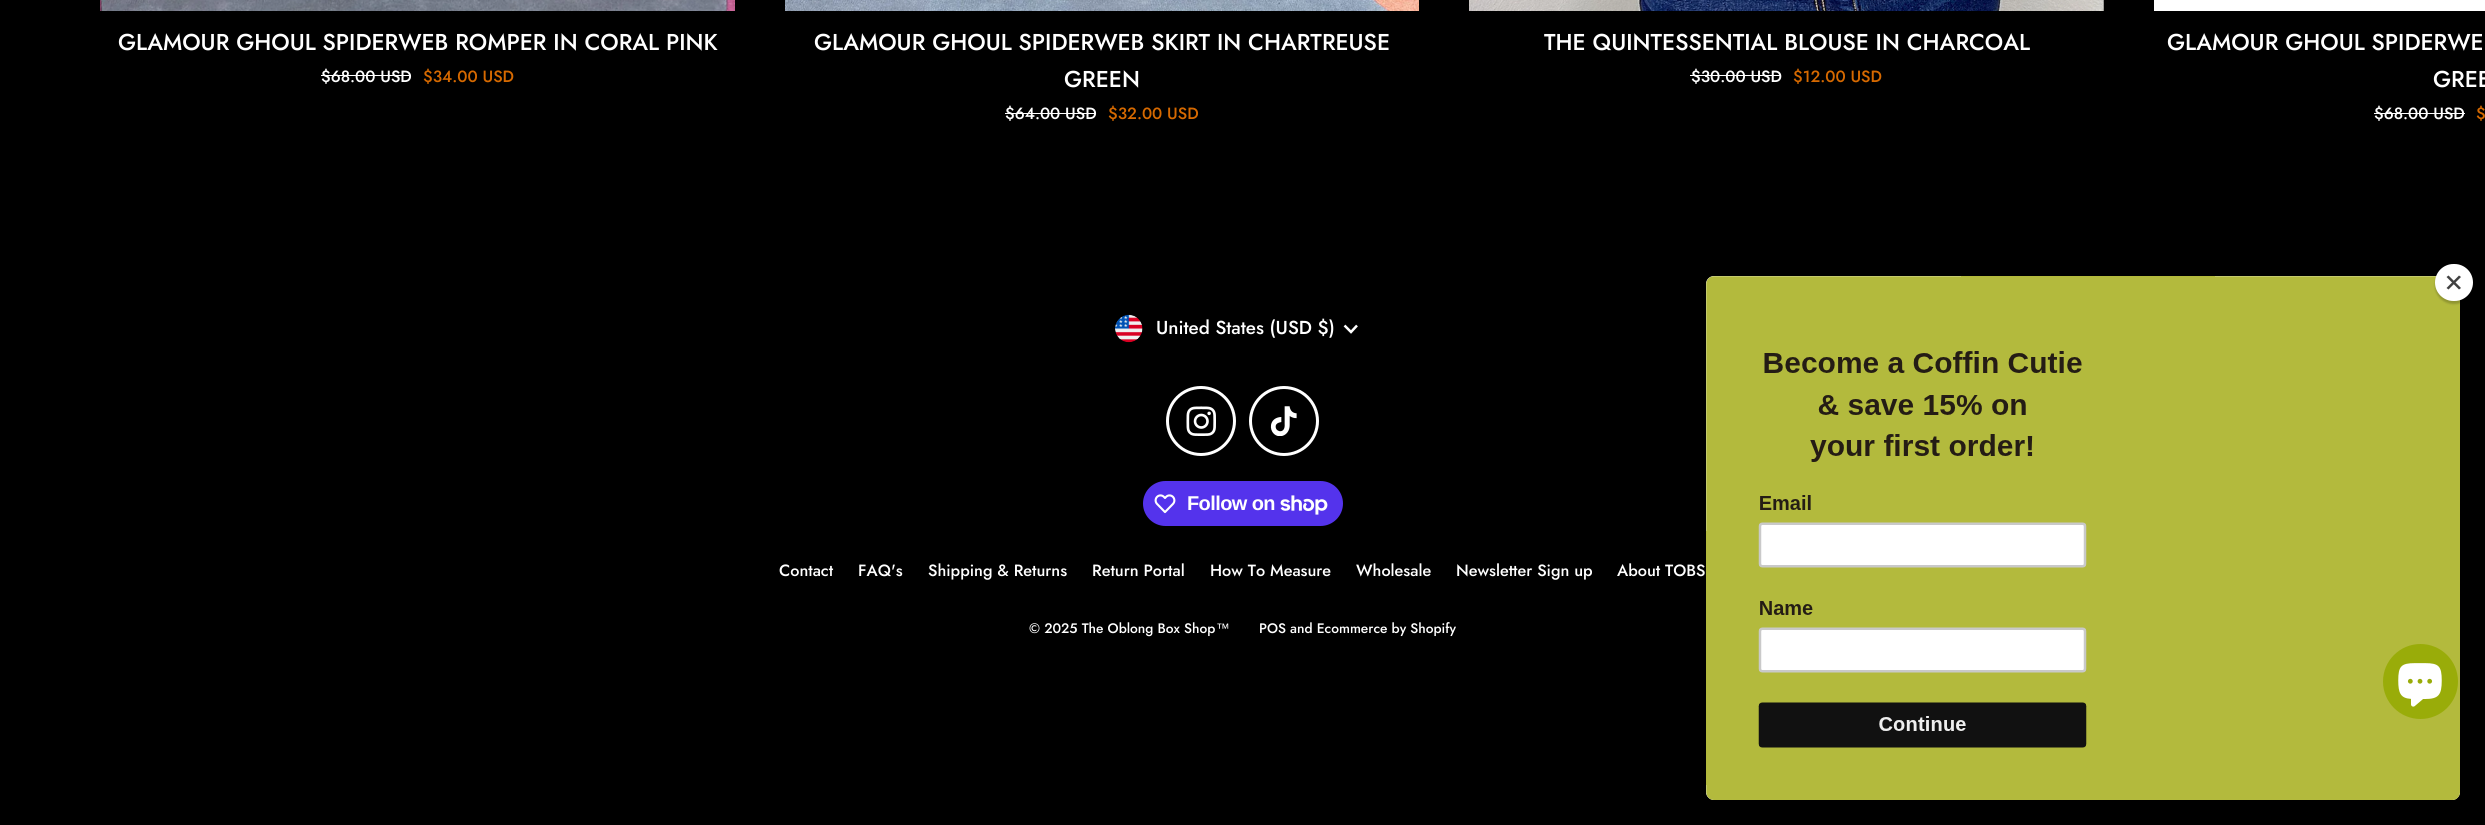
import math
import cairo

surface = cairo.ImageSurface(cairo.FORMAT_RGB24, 2485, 825)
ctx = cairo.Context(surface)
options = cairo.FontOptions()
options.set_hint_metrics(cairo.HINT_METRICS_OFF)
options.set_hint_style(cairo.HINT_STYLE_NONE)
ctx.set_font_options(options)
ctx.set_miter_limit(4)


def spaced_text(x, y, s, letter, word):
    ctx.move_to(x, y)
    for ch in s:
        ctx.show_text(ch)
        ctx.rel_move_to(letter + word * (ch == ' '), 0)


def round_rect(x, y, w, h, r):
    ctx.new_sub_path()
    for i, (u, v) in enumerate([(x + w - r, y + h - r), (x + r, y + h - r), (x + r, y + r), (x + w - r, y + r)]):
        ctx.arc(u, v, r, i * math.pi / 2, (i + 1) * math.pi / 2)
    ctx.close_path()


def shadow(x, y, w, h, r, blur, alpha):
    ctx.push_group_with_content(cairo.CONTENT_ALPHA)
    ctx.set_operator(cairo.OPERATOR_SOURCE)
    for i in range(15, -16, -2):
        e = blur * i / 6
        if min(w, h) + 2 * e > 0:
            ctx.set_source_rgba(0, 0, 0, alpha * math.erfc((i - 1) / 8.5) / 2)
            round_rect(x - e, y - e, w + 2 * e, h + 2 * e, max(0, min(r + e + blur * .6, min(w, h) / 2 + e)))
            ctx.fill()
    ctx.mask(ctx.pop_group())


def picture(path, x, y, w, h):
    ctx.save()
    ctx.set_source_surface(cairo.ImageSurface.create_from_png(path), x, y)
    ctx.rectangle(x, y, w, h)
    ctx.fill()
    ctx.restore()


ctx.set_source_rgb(0, 0, 0)
ctx.paint()
picture("img1.png", 100, 0, 635, 11)
ctx.select_font_face("Jost Medium")
ctx.set_font_size(22.9)
ctx.set_source_rgb(1, 1, 1)
ctx.move_to(118, 50)
ctx.show_text("GLAMOUR GHOUL SPIDERWEB ROMPER IN CORAL PINK")
ctx.set_font_size(16.25)
ctx.move_to(321, 82)
ctx.show_text("$68.00 USD")
ctx.rectangle(321, 75, 90, 1)
ctx.fill()
ctx.set_source_rgb(0.839, 0.412, 0)
ctx.move_to(423, 82)
ctx.show_text("$34.00 USD")
picture("img2.png", 785, 0, 634, 11)
ctx.set_font_size(22.9)
ctx.set_source_rgb(1, 1, 1)
ctx.move_to(814, 50)
ctx.show_text("GLAMOUR GHOUL SPIDERWEB SKIRT IN CHARTREUSE")
ctx.move_to(1064, 87)
ctx.show_text("GREEN")
ctx.set_font_size(16.25)
ctx.move_to(1005, 119)
ctx.show_text("$64.00 USD")
ctx.rectangle(1005, 113, 91, 1)
ctx.fill()
ctx.set_source_rgb(0.839, 0.412, 0)
ctx.move_to(1108, 119)
ctx.show_text("$32.00 USD")
picture("img3.png", 1469, 0, 635, 11)
ctx.set_font_size(22.9)
ctx.set_source_rgb(1, 1, 1)
ctx.move_to(1544, 50)
ctx.show_text("THE QUINTESSENTIAL BLOUSE IN CHARCOAL")
ctx.set_font_size(16.25)
ctx.move_to(1691, 82)
ctx.show_text("$30.00 USD")
ctx.rectangle(1690, 75, 91, 1)
ctx.fill()
ctx.set_source_rgb(0.839, 0.412, 0)
ctx.move_to(1793, 82)
ctx.show_text("$12.00 USD")
gradient = cairo.LinearGradient(2111, -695, 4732, -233)
gradient.add_color_stop_rgba(0.4, 1, 1, 1, 1)
gradient.add_color_stop_rgba(0.63, 0.969, 0.969, 0.969, 1)
gradient.add_color_stop_rgba(0.79, 1, 1, 1, 1)
ctx.set_source(gradient)
ctx.rectangle(2154, 0, 331, 11)
ctx.fill()
ctx.set_font_size(22.9)
ctx.set_source_rgb(1, 1, 1)
ctx.move_to(2167, 50)
ctx.show_text("GLAMOUR GHOUL SPIDERWE")
ctx.move_to(2433, 87)
ctx.show_text("GREE")
ctx.set_font_size(16.25)
ctx.move_to(2374, 119)
ctx.show_text("$68.00 USD")
ctx.rectangle(2374, 113, 91, 1)
ctx.fill()
ctx.set_source_rgb(0.839, 0.412, 0)
ctx.move_to(2476, 119)
ctx.show_text("$")
picture("img4.png", 1115, 314, 28, 29)
ctx.set_font_size(18.75)
ctx.set_source_rgb(1, 1, 1)
ctx.move_to(1156, 334)
ctx.show_text("United States (USD $)")
ctx.new_path()
ctx.move_to(1344.5, 325.5)
ctx.line_to(1351, 332)
ctx.line_to(1357, 325.5)
ctx.set_line_width(2.5)
ctx.stroke()
ctx.arc(1201, 421, 33.5, 0, 2 * math.pi)
ctx.set_line_width(3)
ctx.stroke()
picture("img5.png", 1186, 406, 30, 30)
ctx.arc(1284, 421, 33.5, 0, 2 * math.pi)
ctx.stroke()
picture("img6.png", 1270, 406, 27, 30)
ctx.set_source_rgb(0.329, 0.2, 0.922)
round_rect(1143, 481, 200, 45, 22.5)
ctx.fill()
picture("img7.png", 1154, 494, 22, 20)
ctx.select_font_face("Liberation Sans", cairo.FONT_SLANT_NORMAL, cairo.FONT_WEIGHT_BOLD)
ctx.set_font_size(20)
ctx.set_source_rgb(1, 1, 1)
spaced_text(1187, 510, "Follow on", -0.6, 0)
picture("img8.png", 1280, 495, 48, 20)
ctx.select_font_face("Jost Medium")
ctx.set_font_size(16.25)
ctx.move_to(779, 576)
ctx.show_text("Contact")
ctx.move_to(858, 576)
ctx.show_text("FAQ's")
ctx.move_to(928, 576)
ctx.show_text("Shipping & Returns")
ctx.move_to(1092, 576)
ctx.show_text("Return Portal")
ctx.move_to(1210, 576)
ctx.show_text("How To Measure")
ctx.move_to(1356, 576)
ctx.show_text("Wholesale")
ctx.move_to(1456, 576)
ctx.show_text("Newsletter Sign up")
ctx.move_to(1617, 576)
ctx.show_text("About TOBS")
ctx.set_font_size(13.75)
ctx.move_to(1029, 633)
ctx.show_text("© 2025 The Oblong Box Shop")
ctx.select_font_face("Liberation Sans")
ctx.move_to(1216, 633)
ctx.show_text("™")
ctx.select_font_face("Jost Medium")
ctx.move_to(1259, 633)
ctx.show_text("POS and Ecommerce by Shopify")
ctx.set_source_rgb(0, 0, 0)
shadow(1706, 279, 754, 524, 8, 2.5, 0.2)
ctx.set_source_rgb(1, 1, 1)
round_rect(1706, 276, 754, 524, 8)
ctx.fill()
picture("img9.png", 1706, 276, 754, 524)
ctx.set_source_rgb(0, 0, 0)
shadow(2435, 266, 38, 38, 19, 1, 0.2)
ctx.set_source_rgb(1, 1, 1)
round_rect(2435, 264, 38, 37, 18.5)
ctx.fill()
ctx.set_source_rgb(0.255, 0.255, 0.255)
ctx.new_path()
ctx.move_to(2459, 275.5)
ctx.line_to(2461, 277)
ctx.line_to(2448.5, 289.5)
ctx.line_to(2446.5, 288)
ctx.close_path()
ctx.fill()
ctx.new_path()
ctx.move_to(2446.5, 277)
ctx.line_to(2448.5, 275.5)
ctx.line_to(2461, 288)
ctx.line_to(2459, 289.5)
ctx.close_path()
ctx.fill()
ctx.set_source_rgb(0.6, 0.675, 0.039)
ctx.arc(2420.5, 681.5, 37.5, 0, 2 * math.pi)
ctx.fill()
picture("img10.png", 2398, 663, 44, 44)
surface.write_to_png("page.png")
